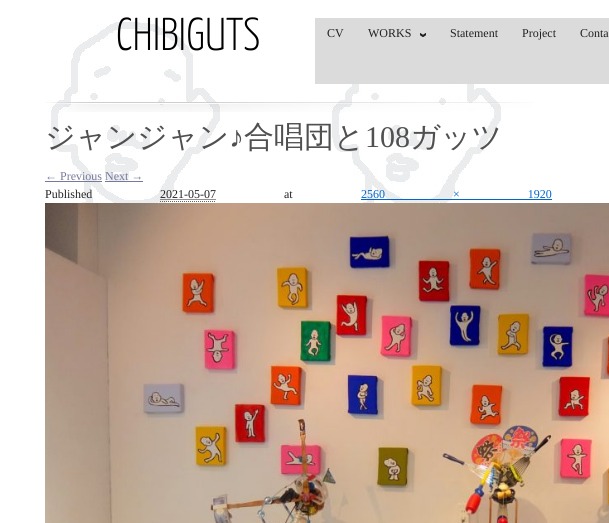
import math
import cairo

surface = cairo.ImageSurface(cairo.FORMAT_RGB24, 609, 523)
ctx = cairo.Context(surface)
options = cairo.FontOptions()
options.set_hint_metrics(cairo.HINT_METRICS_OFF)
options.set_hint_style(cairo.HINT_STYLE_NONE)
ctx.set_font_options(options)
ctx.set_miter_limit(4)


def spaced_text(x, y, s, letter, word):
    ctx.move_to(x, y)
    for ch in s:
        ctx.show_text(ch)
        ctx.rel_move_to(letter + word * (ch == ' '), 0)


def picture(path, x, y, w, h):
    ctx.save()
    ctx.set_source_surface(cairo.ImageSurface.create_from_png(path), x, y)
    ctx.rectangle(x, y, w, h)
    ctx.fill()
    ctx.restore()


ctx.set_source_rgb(1, 1, 1)
ctx.paint()
picture("img1.png", 44, 20, 565, 503)
ctx.select_font_face("Yanone Kaffeesatz Light")
ctx.set_font_size(46)
ctx.set_source_rgb(0, 0, 0)
ctx.move_to(116, 50)
ctx.show_text("CHIBIGUTS")
ctx.set_source_rgb(0.863, 0.859, 0.859)
ctx.rectangle(315, 18, 294, 66)
ctx.fill()
ctx.select_font_face("Liberation Serif")
ctx.set_font_size(12)
ctx.set_source_rgb(0.133, 0.133, 0.133)
ctx.move_to(327, 37)
ctx.show_text("CV")
ctx.move_to(368, 37)
ctx.show_text("WORKS")
picture("img2.png", 420, 33, 6, 4)
ctx.move_to(450, 37)
ctx.show_text("Statement")
ctx.move_to(522, 37)
ctx.show_text("Project")
ctx.move_to(580, 37)
ctx.show_text("Conta")
picture("img3.png", 45, 102, 488, 10)
ctx.select_font_face("WenQuanYi Zen Hei Medium")
ctx.set_font_size(30)
ctx.set_source_rgb(0.314, 0.314, 0.314)
ctx.move_to(45, 147)
ctx.show_text("ジャンジャン")
ctx.select_font_face("Liberation Serif")
ctx.move_to(229, 147)
ctx.show_text("♪")
ctx.select_font_face("WenQuanYi Zen Hei Medium")
ctx.move_to(244, 147)
ctx.show_text("合唱団と")
ctx.select_font_face("Liberation Serif")
ctx.move_to(365, 147)
ctx.show_text("108")
ctx.select_font_face("WenQuanYi Zen Hei Medium")
ctx.move_to(410, 147)
ctx.show_text("ガッツ")
ctx.select_font_face("Liberation Serif")
ctx.set_font_size(12)
ctx.set_source_rgb(0.463, 0.475, 0.608)
ctx.move_to(45, 180)
ctx.show_text("← Previous Next →")
ctx.rectangle(45, 181, 57, 1)
ctx.fill()
ctx.rectangle(105, 181, 38, 1)
ctx.fill()
ctx.set_source_rgb(0.133, 0.133, 0.133)
ctx.move_to(45, 198)
ctx.show_text("Published")
ctx.move_to(160, 198)
ctx.show_text("2021-05-07")
ctx.new_path()
ctx.move_to(160, 201.5)
ctx.line_to(216, 201.5)
ctx.set_source_rgb(0.4, 0.4, 0.4)
ctx.set_line_width(1)
ctx.set_dash([1, 1])
ctx.stroke()
ctx.new_path()
ctx.move_to(160.5, 199.5)
ctx.line_to(216.5, 199.5)
ctx.set_source_rgb(0.133, 0.133, 0.133)
ctx.stroke()
ctx.move_to(284, 198)
ctx.show_text("at")
ctx.set_source_rgb(0, 0.4, 0.8)
spaced_text(361, 198, "2560 × 1920", 0, 65)
ctx.rectangle(361, 199, 191, 1)
ctx.fill()
picture("img4.png", 45, 203, 564, 320)
surface.write_to_png("page.png")
